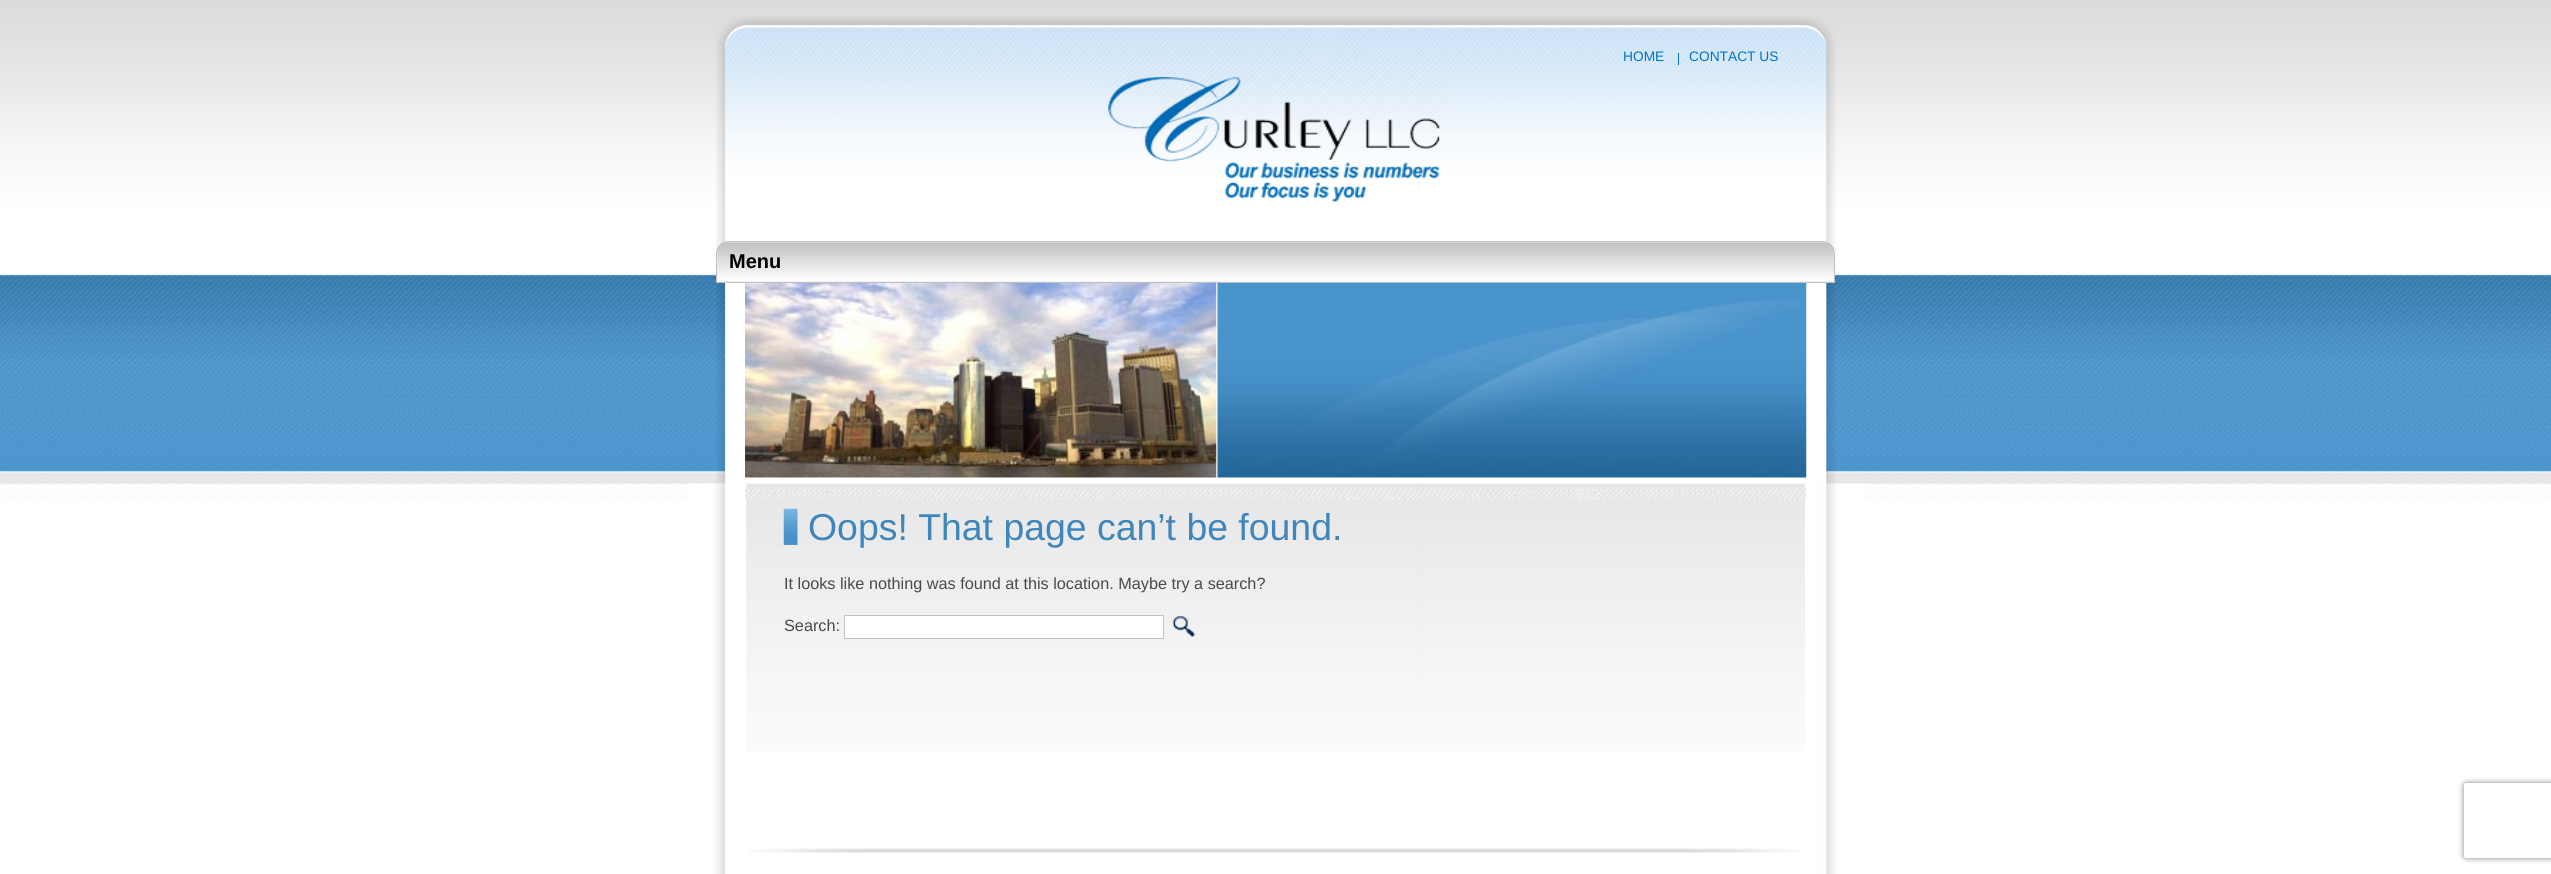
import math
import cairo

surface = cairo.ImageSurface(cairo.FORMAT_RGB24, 2551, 874)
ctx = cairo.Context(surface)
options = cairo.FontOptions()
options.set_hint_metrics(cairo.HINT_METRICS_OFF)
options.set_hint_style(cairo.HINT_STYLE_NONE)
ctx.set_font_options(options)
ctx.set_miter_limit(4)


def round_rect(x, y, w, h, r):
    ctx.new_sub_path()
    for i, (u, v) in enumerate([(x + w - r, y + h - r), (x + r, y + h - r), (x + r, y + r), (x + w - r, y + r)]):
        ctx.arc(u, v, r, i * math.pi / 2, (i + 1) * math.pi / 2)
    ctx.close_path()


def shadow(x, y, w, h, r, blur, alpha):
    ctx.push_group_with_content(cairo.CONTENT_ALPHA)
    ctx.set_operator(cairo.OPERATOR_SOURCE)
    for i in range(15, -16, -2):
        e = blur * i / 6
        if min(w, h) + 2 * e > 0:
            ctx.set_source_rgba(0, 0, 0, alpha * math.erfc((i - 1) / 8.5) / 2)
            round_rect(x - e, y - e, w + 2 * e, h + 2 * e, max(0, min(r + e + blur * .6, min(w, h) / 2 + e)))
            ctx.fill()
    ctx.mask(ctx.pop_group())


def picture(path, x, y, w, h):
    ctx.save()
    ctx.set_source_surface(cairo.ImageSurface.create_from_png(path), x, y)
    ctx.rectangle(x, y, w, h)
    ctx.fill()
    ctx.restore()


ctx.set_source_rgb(1, 1, 1)
ctx.paint()
picture("img1.png", 0, 0, 2551, 500)
picture("img2.png", 716, 16, 1120, 468)
ctx.select_font_face("Liberation Sans")
ctx.set_font_size(13.75)
ctx.set_source_rgb(0, 0.455, 0.796)
ctx.move_to(1623, 61)
ctx.show_text("HOME")
ctx.rectangle(1678, 53, 1, 12)
ctx.fill()
ctx.move_to(1689, 61)
ctx.show_text("CONTACT US")
picture("img3.png", 1103, 62, 345, 140)
ctx.set_source_rgb(0.937, 0.937, 0.937)
ctx.new_path()
ctx.move_to(729, 241)
ctx.line_to(1822, 241)
ctx.curve_to(1829, 241, 1835, 247, 1835, 254)
ctx.line_to(1835, 283)
ctx.line_to(716, 283)
ctx.line_to(716, 254)
ctx.curve_to(716, 247, 722, 241, 729, 241)
ctx.close_path()
ctx.fill()
picture("img4.png", 717, 242, 1117, 40)
ctx.new_path()
ctx.move_to(729, 241.5)
ctx.line_to(1822, 241.5)
ctx.curve_to(1829, 241.5, 1834.5, 247, 1834.5, 254)
ctx.line_to(1834.5, 282.5)
ctx.line_to(716.5, 282.5)
ctx.line_to(716.5, 254)
ctx.curve_to(716.5, 247, 722, 241.5, 729, 241.5)
ctx.close_path()
ctx.set_source_rgb(0.753, 0.753, 0.753)
ctx.set_line_width(1)
ctx.stroke()
ctx.select_font_face("Liberation Sans", cairo.FONT_SLANT_NORMAL, cairo.FONT_WEIGHT_BOLD)
ctx.set_font_size(20)
ctx.set_source_rgb(0, 0, 0)
ctx.move_to(729, 268)
ctx.show_text("Menu")
picture("img5.png", 745, 283, 472, 195)
picture("img6.png", 1217, 283, 590, 195)
picture("img8.png", 688, 483, 1175, 391)
picture("img9.png", 746, 483, 1059, 269)
picture("img7.png", 745, 488, 1062, 12)
picture("img10.png", 783, 508, 15, 37)
ctx.select_font_face("Liberation Sans")
ctx.set_font_size(37.4)
ctx.set_source_rgb(0.243, 0.525, 0.733)
ctx.move_to(808, 540)
ctx.show_text("Oops! That page can’t be found.")
ctx.set_font_size(16.25)
ctx.set_source_rgb(0.29, 0.29, 0.29)
ctx.move_to(784, 589)
ctx.show_text("It looks like nothing was found at this location. Maybe try a search?")
ctx.move_to(784, 631)
ctx.show_text("Search:")
ctx.set_source_rgb(1, 1, 1)
ctx.rectangle(844.5, 615.5, 319, 23)
ctx.fill_preserve()
ctx.set_source_rgb(0.753, 0.753, 0.753)
ctx.stroke()
picture("img11.png", 1172, 616, 24, 21)
picture("img12.png", 749, 848, 1053, 5)
ctx.save()
ctx.set_fill_rule(cairo.FILL_RULE_EVEN_ODD)
ctx.new_path()
ctx.move_to(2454, 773)
ctx.line_to(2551, 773)
ctx.line_to(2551, 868)
ctx.line_to(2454, 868)
ctx.close_path()
ctx.move_to(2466.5, 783)
ctx.line_to(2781.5, 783)
ctx.curve_to(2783, 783, 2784, 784, 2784, 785.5)
ctx.line_to(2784, 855.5)
ctx.curve_to(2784, 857, 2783, 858, 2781.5, 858)
ctx.line_to(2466.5, 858)
ctx.curve_to(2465, 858, 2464, 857, 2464, 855.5)
ctx.line_to(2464, 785.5)
ctx.curve_to(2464, 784, 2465, 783, 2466.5, 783)
ctx.close_path()
ctx.clip()
ctx.set_source_rgb(0.502, 0.502, 0.502)
shadow(2464, 783, 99, 75, 2.5, 3, 1)
ctx.restore()
surface.write_to_png("page.png")
